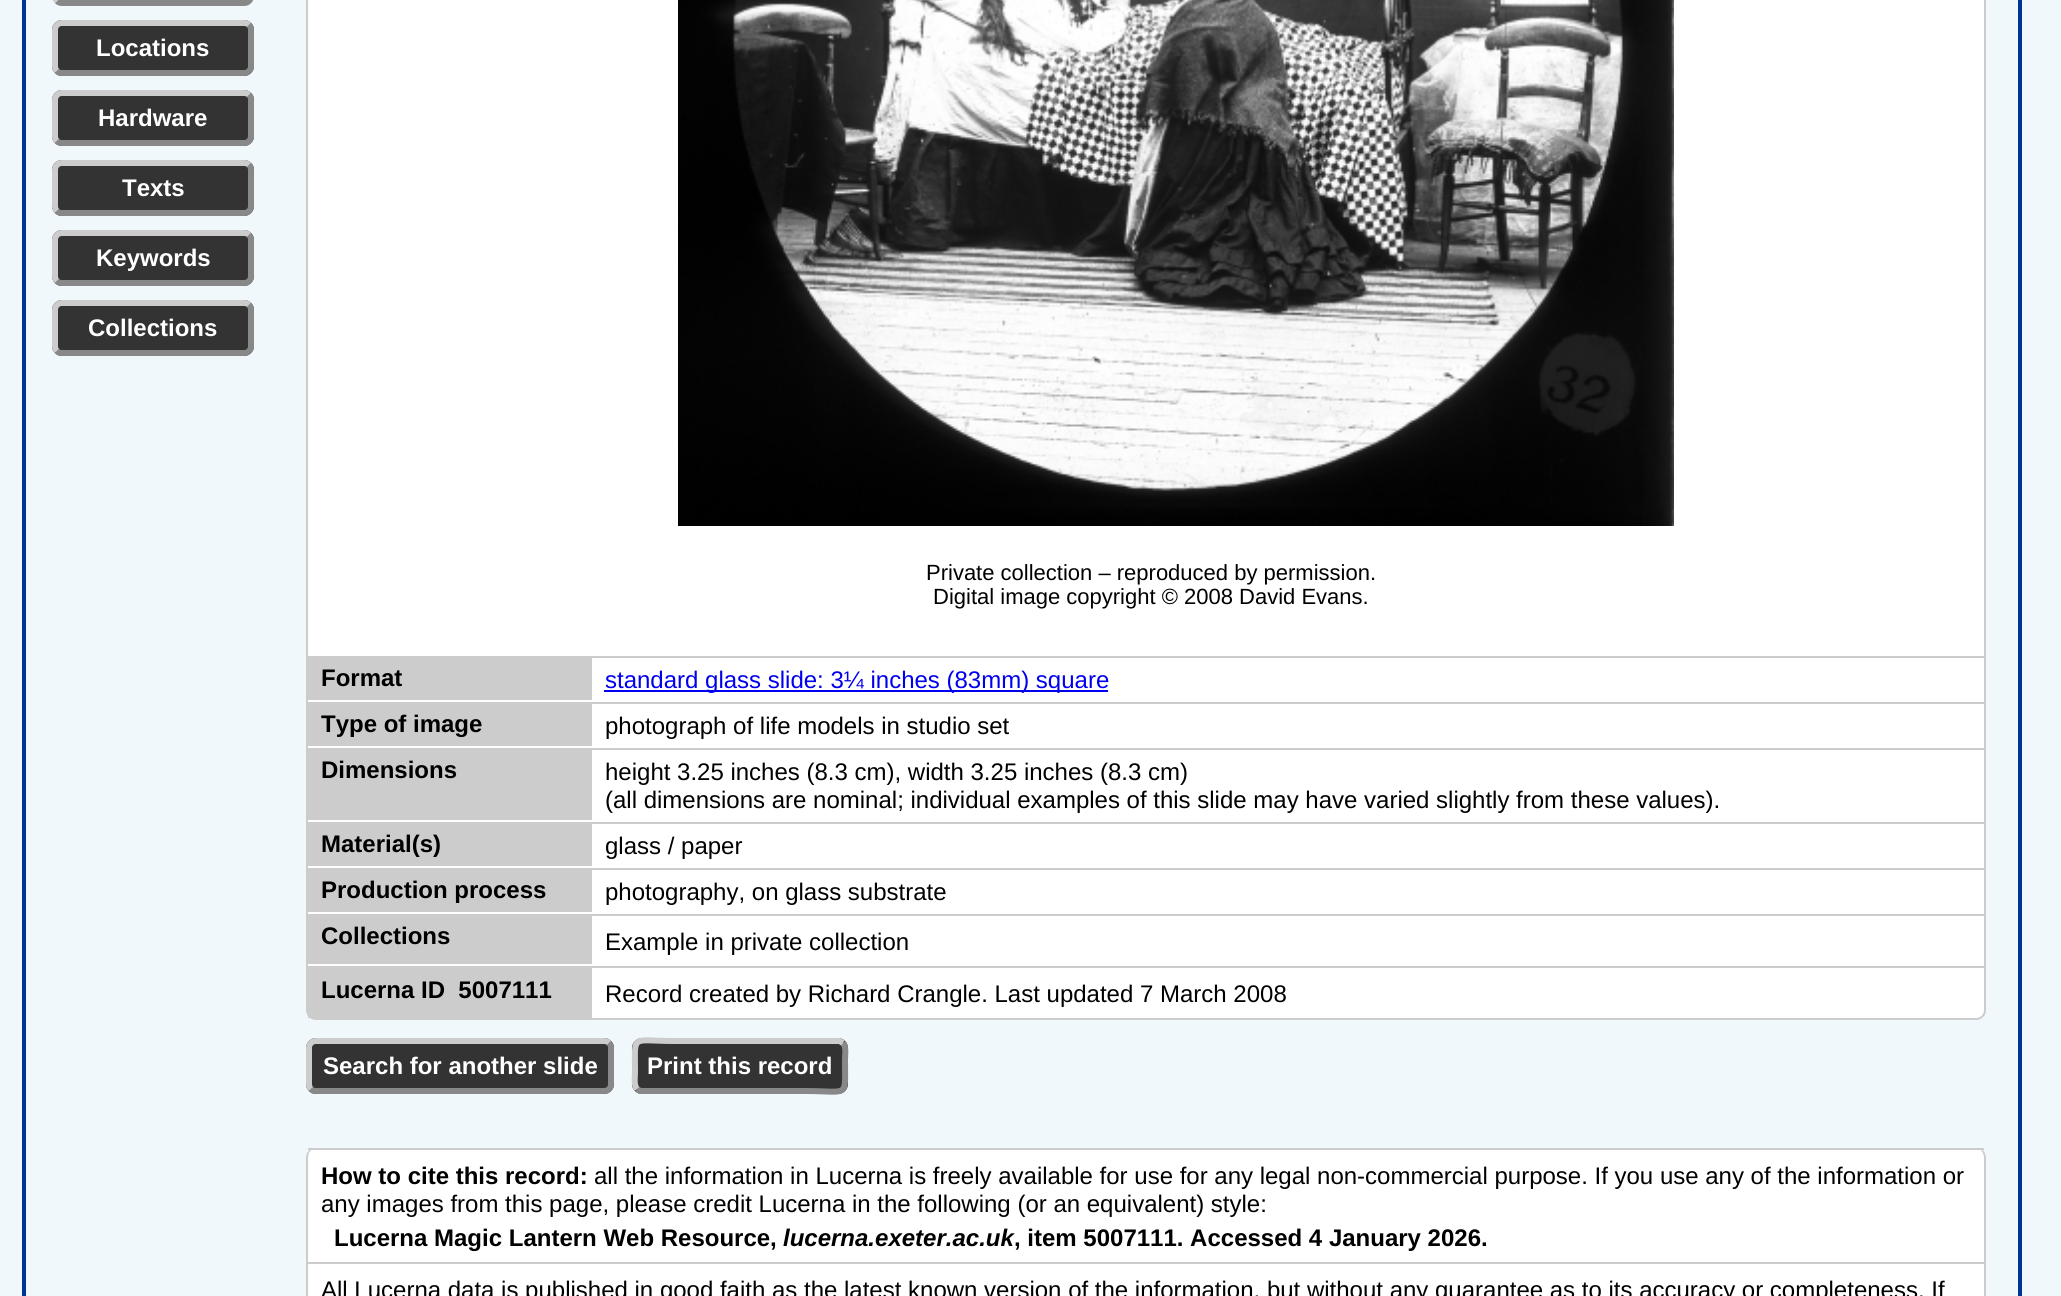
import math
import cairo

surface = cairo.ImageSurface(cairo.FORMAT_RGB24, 2061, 1296)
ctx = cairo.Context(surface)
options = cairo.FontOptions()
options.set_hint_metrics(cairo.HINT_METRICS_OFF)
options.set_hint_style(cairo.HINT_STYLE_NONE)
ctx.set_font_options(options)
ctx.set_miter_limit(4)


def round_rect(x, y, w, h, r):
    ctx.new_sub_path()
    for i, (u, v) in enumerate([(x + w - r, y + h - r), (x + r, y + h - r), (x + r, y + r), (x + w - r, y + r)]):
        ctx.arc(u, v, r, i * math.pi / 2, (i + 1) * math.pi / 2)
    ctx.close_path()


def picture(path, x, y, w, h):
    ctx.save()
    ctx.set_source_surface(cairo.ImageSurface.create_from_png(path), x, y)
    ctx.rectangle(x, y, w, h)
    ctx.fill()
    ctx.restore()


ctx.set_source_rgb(0.945, 0.969, 0.984)
ctx.paint()
ctx.rectangle(24, -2, 1996, 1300)
ctx.set_source_rgb(0, 0.2, 0.6)
ctx.set_line_width(4)
ctx.stroke()
ctx.new_path()
ctx.move_to(249, -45)
ctx.curve_to(250.5, -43.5, 251, -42, 251, -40)
ctx.line_to(251, -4)
ctx.curve_to(251, -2, 250.5, -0.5, 249, 1)
ctx.curve_to(247.5, 2.5, 246, 3, 244, 3)
ctx.line_to(62, 3)
ctx.curve_to(60, 3, 58.5, 2.5, 57, 1)
ctx.set_source_rgb(0.533, 0.533, 0.533)
ctx.set_line_width(6)
ctx.stroke()
ctx.new_path()
ctx.move_to(57, 1)
ctx.curve_to(55.5, -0.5, 55, -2, 55, -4)
ctx.line_to(55, -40)
ctx.curve_to(55, -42, 55.5, -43.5, 57, -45)
ctx.curve_to(58.5, -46.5, 60, -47, 62, -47)
ctx.line_to(244, -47)
ctx.curve_to(246, -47, 247.5, -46.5, 249, -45)
ctx.set_source_rgb(0.8, 0.8, 0.8)
ctx.stroke()
ctx.set_source_rgb(0.2, 0.2, 0.2)
round_rect(52, 20, 202, 56, 10)
ctx.fill()
ctx.new_path()
ctx.move_to(249, 25)
ctx.curve_to(250.5, 26.5, 251, 28, 251, 30)
ctx.line_to(251, 66)
ctx.curve_to(251, 68, 250.5, 69.5, 249, 71)
ctx.curve_to(247.5, 72.5, 246, 73, 244, 73)
ctx.line_to(62, 73)
ctx.curve_to(60, 73, 58.5, 72.5, 57, 71)
ctx.set_source_rgb(0.533, 0.533, 0.533)
ctx.stroke()
ctx.new_path()
ctx.move_to(57, 71)
ctx.curve_to(55.5, 69.5, 55, 68, 55, 66)
ctx.line_to(55, 30)
ctx.curve_to(55, 28, 55.5, 26.5, 57, 25)
ctx.curve_to(58.5, 23.5, 60, 23, 62, 23)
ctx.line_to(244, 23)
ctx.curve_to(246, 23, 247.5, 23.5, 249, 25)
ctx.set_source_rgb(0.8, 0.8, 0.8)
ctx.stroke()
ctx.select_font_face("Liberation Sans", cairo.FONT_SLANT_NORMAL, cairo.FONT_WEIGHT_BOLD)
ctx.set_font_size(24)
ctx.set_source_rgb(1, 1, 1)
ctx.move_to(96, 56)
ctx.show_text("Locations")
ctx.set_source_rgb(0.2, 0.2, 0.2)
round_rect(52, 90, 202, 56, 10)
ctx.fill()
ctx.new_path()
ctx.move_to(249, 95)
ctx.curve_to(250.5, 96.5, 251, 98, 251, 100)
ctx.line_to(251, 136)
ctx.curve_to(251, 138, 250.5, 139.5, 249, 141)
ctx.curve_to(247.5, 142.5, 246, 143, 244, 143)
ctx.line_to(62, 143)
ctx.curve_to(60, 143, 58.5, 142.5, 57, 141)
ctx.set_source_rgb(0.533, 0.533, 0.533)
ctx.stroke()
ctx.new_path()
ctx.move_to(57, 141)
ctx.curve_to(55.5, 139.5, 55, 138, 55, 136)
ctx.line_to(55, 100)
ctx.curve_to(55, 98, 55.5, 96.5, 57, 95)
ctx.curve_to(58.5, 93.5, 60, 93, 62, 93)
ctx.line_to(244, 93)
ctx.curve_to(246, 93, 247.5, 93.5, 249, 95)
ctx.set_source_rgb(0.8, 0.8, 0.8)
ctx.stroke()
ctx.set_source_rgb(1, 1, 1)
ctx.move_to(98, 126)
ctx.show_text("Hardware")
ctx.set_source_rgb(0.2, 0.2, 0.2)
round_rect(52, 160, 202, 56, 10)
ctx.fill()
ctx.new_path()
ctx.move_to(249, 165)
ctx.curve_to(250.5, 166.5, 251, 168, 251, 170)
ctx.line_to(251, 206)
ctx.curve_to(251, 208, 250.5, 209.5, 249, 211)
ctx.curve_to(247.5, 212.5, 246, 213, 244, 213)
ctx.line_to(62, 213)
ctx.curve_to(60, 213, 58.5, 212.5, 57, 211)
ctx.set_source_rgb(0.533, 0.533, 0.533)
ctx.stroke()
ctx.new_path()
ctx.move_to(57, 211)
ctx.curve_to(55.5, 209.5, 55, 208, 55, 206)
ctx.line_to(55, 170)
ctx.curve_to(55, 168, 55.5, 166.5, 57, 165)
ctx.curve_to(58.5, 163.5, 60, 163, 62, 163)
ctx.line_to(244, 163)
ctx.curve_to(246, 163, 247.5, 163.5, 249, 165)
ctx.set_source_rgb(0.8, 0.8, 0.8)
ctx.stroke()
ctx.set_source_rgb(1, 1, 1)
ctx.move_to(122, 196)
ctx.show_text("Texts")
ctx.set_source_rgb(0.2, 0.2, 0.2)
round_rect(52, 230, 202, 56, 10)
ctx.fill()
ctx.new_path()
ctx.move_to(249, 235)
ctx.curve_to(250.5, 236.5, 251, 238, 251, 240)
ctx.line_to(251, 276)
ctx.curve_to(251, 278, 250.5, 279.5, 249, 281)
ctx.curve_to(247.5, 282.5, 246, 283, 244, 283)
ctx.line_to(62, 283)
ctx.curve_to(60, 283, 58.5, 282.5, 57, 281)
ctx.set_source_rgb(0.533, 0.533, 0.533)
ctx.stroke()
ctx.new_path()
ctx.move_to(57, 281)
ctx.curve_to(55.5, 279.5, 55, 278, 55, 276)
ctx.line_to(55, 240)
ctx.curve_to(55, 238, 55.5, 236.5, 57, 235)
ctx.curve_to(58.5, 233.5, 60, 233, 62, 233)
ctx.line_to(244, 233)
ctx.curve_to(246, 233, 247.5, 233.5, 249, 235)
ctx.set_source_rgb(0.8, 0.8, 0.8)
ctx.stroke()
ctx.set_source_rgb(1, 1, 1)
ctx.move_to(96, 266)
ctx.show_text("Keywords")
ctx.set_source_rgb(0.2, 0.2, 0.2)
round_rect(52, 300, 202, 56, 10)
ctx.fill()
ctx.new_path()
ctx.move_to(249, 305)
ctx.curve_to(250.5, 306.5, 251, 308, 251, 310)
ctx.line_to(251, 346)
ctx.curve_to(251, 348, 250.5, 349.5, 249, 351)
ctx.curve_to(247.5, 352.5, 246, 353, 244, 353)
ctx.line_to(62, 353)
ctx.curve_to(60, 353, 58.5, 352.5, 57, 351)
ctx.set_source_rgb(0.533, 0.533, 0.533)
ctx.stroke()
ctx.new_path()
ctx.move_to(57, 351)
ctx.curve_to(55.5, 349.5, 55, 348, 55, 346)
ctx.line_to(55, 310)
ctx.curve_to(55, 308, 55.5, 306.5, 57, 305)
ctx.curve_to(58.5, 303.5, 60, 303, 62, 303)
ctx.line_to(244, 303)
ctx.curve_to(246, 303, 247.5, 303.5, 249, 305)
ctx.set_source_rgb(0.8, 0.8, 0.8)
ctx.stroke()
ctx.set_source_rgb(1, 1, 1)
ctx.move_to(88, 336)
ctx.show_text("Collections")
ctx.rectangle(308, 0, 1676, 656)
ctx.fill()
ctx.set_source_rgb(0.8, 0.8, 0.8)
ctx.rectangle(1984, 0, 2, 966)
ctx.fill()
ctx.rectangle(306, 0, 2, 966)
ctx.fill()
picture("img1.png", 678, 0, 996, 526)
ctx.select_font_face("Liberation Sans")
ctx.set_font_size(22)
ctx.set_source_rgb(0, 0, 0)
ctx.move_to(926, 580)
ctx.show_text("Private collection – reproduced by permission.")
ctx.move_to(933, 604)
ctx.show_text("Digital image copyright © 2008 David Evans.")
ctx.set_source_rgb(1, 1, 1)
ctx.rectangle(592, 658, 1392, 308)
ctx.fill()
ctx.set_source_rgb(0.8, 0.8, 0.8)
ctx.rectangle(308, 656, 284, 44)
ctx.fill()
ctx.set_source_rgb(1, 1, 1)
ctx.rectangle(308, 700, 284, 2)
ctx.fill()
ctx.select_font_face("Liberation Sans", cairo.FONT_SLANT_NORMAL, cairo.FONT_WEIGHT_BOLD)
ctx.set_font_size(24)
ctx.set_source_rgb(0, 0, 0)
ctx.move_to(321, 686)
ctx.show_text("Format")
ctx.set_source_rgb(0.8, 0.8, 0.8)
ctx.rectangle(592, 656, 1392, 2)
ctx.fill()
ctx.set_source_rgb(0, 0, 0.933)
ctx.rectangle(604, 690, 504, 2)
ctx.fill()
ctx.select_font_face("Liberation Sans")
ctx.move_to(605, 688)
ctx.show_text("standard glass slide: 3¼ inches (83mm) square")
ctx.set_source_rgb(0.8, 0.8, 0.8)
ctx.rectangle(308, 702, 284, 44)
ctx.fill()
ctx.set_source_rgb(1, 1, 1)
ctx.rectangle(308, 746, 284, 2)
ctx.fill()
ctx.select_font_face("Liberation Sans", cairo.FONT_SLANT_NORMAL, cairo.FONT_WEIGHT_BOLD)
ctx.set_source_rgb(0, 0, 0)
ctx.move_to(321, 732)
ctx.show_text("Type of image")
ctx.set_source_rgb(0.8, 0.8, 0.8)
ctx.rectangle(592, 702, 1392, 2)
ctx.fill()
ctx.select_font_face("Liberation Sans")
ctx.set_source_rgb(0, 0, 0)
ctx.move_to(605, 734)
ctx.show_text("photograph of life models in studio set")
ctx.set_source_rgb(0.8, 0.8, 0.8)
ctx.rectangle(308, 748, 284, 72)
ctx.fill()
ctx.set_source_rgb(1, 1, 1)
ctx.rectangle(308, 820, 284, 2)
ctx.fill()
ctx.select_font_face("Liberation Sans", cairo.FONT_SLANT_NORMAL, cairo.FONT_WEIGHT_BOLD)
ctx.set_source_rgb(0, 0, 0)
ctx.move_to(321, 778)
ctx.show_text("Dimensions")
ctx.set_source_rgb(0.8, 0.8, 0.8)
ctx.rectangle(592, 748, 1392, 2)
ctx.fill()
ctx.select_font_face("Liberation Sans")
ctx.set_source_rgb(0, 0, 0)
ctx.move_to(605, 780)
ctx.show_text("height 3.25 inches (8.3 cm), width 3.25 inches (8.3 cm)")
ctx.move_to(605, 808)
ctx.show_text("(all dimensions are nominal; individual examples of this slide may have varied slightly from these values).")
ctx.set_source_rgb(0.8, 0.8, 0.8)
ctx.rectangle(308, 822, 284, 44)
ctx.fill()
ctx.set_source_rgb(1, 1, 1)
ctx.rectangle(308, 866, 284, 2)
ctx.fill()
ctx.select_font_face("Liberation Sans", cairo.FONT_SLANT_NORMAL, cairo.FONT_WEIGHT_BOLD)
ctx.set_source_rgb(0, 0, 0)
ctx.move_to(321, 852)
ctx.show_text("Material(s)")
ctx.set_source_rgb(0.8, 0.8, 0.8)
ctx.rectangle(592, 822, 1392, 2)
ctx.fill()
ctx.select_font_face("Liberation Sans")
ctx.set_source_rgb(0, 0, 0)
ctx.move_to(605, 854)
ctx.show_text("glass / paper")
ctx.set_source_rgb(0.8, 0.8, 0.8)
ctx.rectangle(308, 868, 284, 44)
ctx.fill()
ctx.set_source_rgb(1, 1, 1)
ctx.rectangle(308, 912, 284, 2)
ctx.fill()
ctx.select_font_face("Liberation Sans", cairo.FONT_SLANT_NORMAL, cairo.FONT_WEIGHT_BOLD)
ctx.set_source_rgb(0, 0, 0)
ctx.move_to(321, 898)
ctx.show_text("Production process")
ctx.set_source_rgb(0.8, 0.8, 0.8)
ctx.rectangle(592, 868, 1392, 2)
ctx.fill()
ctx.select_font_face("Liberation Sans")
ctx.set_source_rgb(0, 0, 0)
ctx.move_to(605, 900)
ctx.show_text("photography, on glass substrate")
ctx.set_source_rgb(0.8, 0.8, 0.8)
ctx.rectangle(308, 914, 284, 50)
ctx.fill()
ctx.set_source_rgb(1, 1, 1)
ctx.rectangle(308, 964, 284, 2)
ctx.fill()
ctx.select_font_face("Liberation Sans", cairo.FONT_SLANT_NORMAL, cairo.FONT_WEIGHT_BOLD)
ctx.set_source_rgb(0, 0, 0)
ctx.move_to(321, 944)
ctx.show_text("Collections")
ctx.set_source_rgb(0.8, 0.8, 0.8)
ctx.rectangle(592, 914, 1392, 2)
ctx.fill()
ctx.select_font_face("Liberation Sans")
ctx.set_source_rgb(0, 0, 0)
ctx.move_to(605, 950)
ctx.show_text("Example in private collection")
ctx.set_source_rgb(1, 1, 1)
ctx.new_path()
ctx.move_to(307, 967)
ctx.line_to(1985, 967)
ctx.line_to(1985, 1010)
ctx.curve_to(1985, 1015, 1981, 1019, 1976, 1019)
ctx.line_to(316, 1019)
ctx.curve_to(311, 1019, 307, 1015, 307, 1010)
ctx.close_path()
ctx.fill_preserve()
ctx.set_source_rgb(0.8, 0.8, 0.8)
ctx.set_line_width(2)
ctx.stroke()
ctx.rectangle(308, 968, 284, 50)
ctx.fill()
ctx.select_font_face("Liberation Sans", cairo.FONT_SLANT_NORMAL, cairo.FONT_WEIGHT_BOLD)
ctx.set_source_rgb(0, 0, 0)
ctx.move_to(321, 998)
ctx.show_text("Lucerna ID  5007111")
ctx.select_font_face("Liberation Sans")
ctx.move_to(605, 1002)
ctx.show_text("Record created by Richard Crangle. Last updated 7 March 2008")
ctx.set_source_rgb(0.2, 0.2, 0.2)
round_rect(306, 1038, 308, 56, 10)
ctx.fill()
ctx.new_path()
ctx.move_to(609, 1043)
ctx.curve_to(610.5, 1044.5, 611, 1046, 611, 1048)
ctx.line_to(611, 1084)
ctx.curve_to(611, 1086, 610.5, 1087.5, 609, 1089)
ctx.curve_to(607.5, 1090.5, 606, 1091, 604, 1091)
ctx.line_to(316, 1091)
ctx.curve_to(314, 1091, 312.5, 1090.5, 311, 1089)
ctx.set_source_rgb(0.533, 0.533, 0.533)
ctx.set_line_width(6)
ctx.stroke()
ctx.new_path()
ctx.move_to(311, 1089)
ctx.curve_to(309.5, 1087.5, 309, 1086, 309, 1084)
ctx.line_to(309, 1048)
ctx.curve_to(309, 1046, 309.5, 1044.5, 311, 1043)
ctx.curve_to(312.5, 1041.5, 314, 1041, 316, 1041)
ctx.line_to(604, 1041)
ctx.curve_to(606, 1041, 607.5, 1041.5, 609, 1043)
ctx.set_source_rgb(0.8, 0.8, 0.8)
ctx.stroke()
ctx.select_font_face("Liberation Sans", cairo.FONT_SLANT_NORMAL, cairo.FONT_WEIGHT_BOLD)
ctx.set_source_rgb(1, 1, 1)
ctx.move_to(323, 1074)
ctx.show_text("Search for another slide")
ctx.set_source_rgb(0.2, 0.2, 0.2)
round_rect(632, 1038, 216, 56, 10)
ctx.fill()
ctx.new_path()
ctx.move_to(843, 1043)
ctx.curve_to(846.5, 1047, 845, 1055.5, 845, 1060)
ctx.curve_to(845, 1099, 849.5, 1091, 805.5, 1091)
ctx.line_to(640.5, 1091)
ctx.line_to(637, 1089)
ctx.set_source_rgb(0.533, 0.533, 0.533)
ctx.stroke()
ctx.new_path()
ctx.move_to(637, 1089)
ctx.curve_to(633.5, 1085, 635, 1076.5, 635, 1072)
ctx.curve_to(635, 1033, 630.5, 1041, 674.5, 1041)
ctx.line_to(839.5, 1041)
ctx.line_to(843, 1043)
ctx.set_source_rgb(0.8, 0.8, 0.8)
ctx.stroke()
ctx.set_source_rgb(1, 1, 1)
ctx.move_to(647, 1074)
ctx.show_text("Print this record")
round_rect(306, 1148, 1680, 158, 10)
ctx.fill()
ctx.set_source_rgb(0.8, 0.8, 0.8)
ctx.set_fill_rule(cairo.FILL_RULE_EVEN_ODD)
ctx.new_path()
ctx.move_to(316, 1148)
ctx.line_to(1976, 1148)
ctx.curve_to(1982, 1148, 1986, 1152, 1986, 1158)
ctx.line_to(1986, 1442)
ctx.curve_to(1986, 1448, 1982, 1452, 1976, 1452)
ctx.line_to(316, 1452)
ctx.curve_to(310, 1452, 306, 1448, 306, 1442)
ctx.line_to(306, 1158)
ctx.curve_to(306, 1152, 310, 1148, 316, 1148)
ctx.close_path()
ctx.move_to(316, 1148)
ctx.line_to(1976, 1148)
ctx.curve_to(1980, 1148, 1984, 1152, 1984, 1158)
ctx.line_to(1984, 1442)
ctx.curve_to(1984, 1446, 1980, 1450, 1976, 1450)
ctx.line_to(316, 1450)
ctx.curve_to(312, 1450, 308, 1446, 308, 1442)
ctx.line_to(308, 1158)
ctx.curve_to(308, 1152, 312, 1148, 316, 1148)
ctx.close_path()
ctx.fill()
ctx.rectangle(308, 1148, 1676, 2)
ctx.fill()
ctx.set_source_rgb(0, 0, 0)
ctx.move_to(321, 1184)
ctx.show_text("How to cite this record:")
ctx.select_font_face("Liberation Sans")
ctx.move_to(594, 1184)
ctx.show_text("all the information in Lucerna is freely available for use for any legal non-commercial purpose. If you use any of the information or")
ctx.move_to(321, 1212)
ctx.show_text("any images from this page, please credit Lucerna in the following (or an equivalent) style:")
ctx.select_font_face("Liberation Sans", cairo.FONT_SLANT_NORMAL, cairo.FONT_WEIGHT_BOLD)
ctx.move_to(334, 1246)
ctx.show_text("Lucerna Magic Lantern Web Resource,")
ctx.select_font_face("Liberation Sans", cairo.FONT_SLANT_ITALIC, cairo.FONT_WEIGHT_BOLD)
ctx.move_to(783, 1246)
ctx.show_text("lucerna.exeter.ac.uk")
ctx.select_font_face("Liberation Sans", cairo.FONT_SLANT_NORMAL, cairo.FONT_WEIGHT_BOLD)
ctx.move_to(1014, 1246)
ctx.show_text(", item 5007111. Accessed 4 January 2026.")
ctx.set_source_rgb(0.8, 0.8, 0.8)
ctx.rectangle(308, 1262, 1676, 2)
ctx.fill()
ctx.select_font_face("Liberation Sans")
ctx.set_source_rgb(0, 0, 0)
ctx.move_to(321, 1298)
ctx.show_text("All Lucerna data is published in good faith as the latest known version of the information, but without any guarantee as to its accuracy or completeness. If")
surface.write_to_png("page.png")
